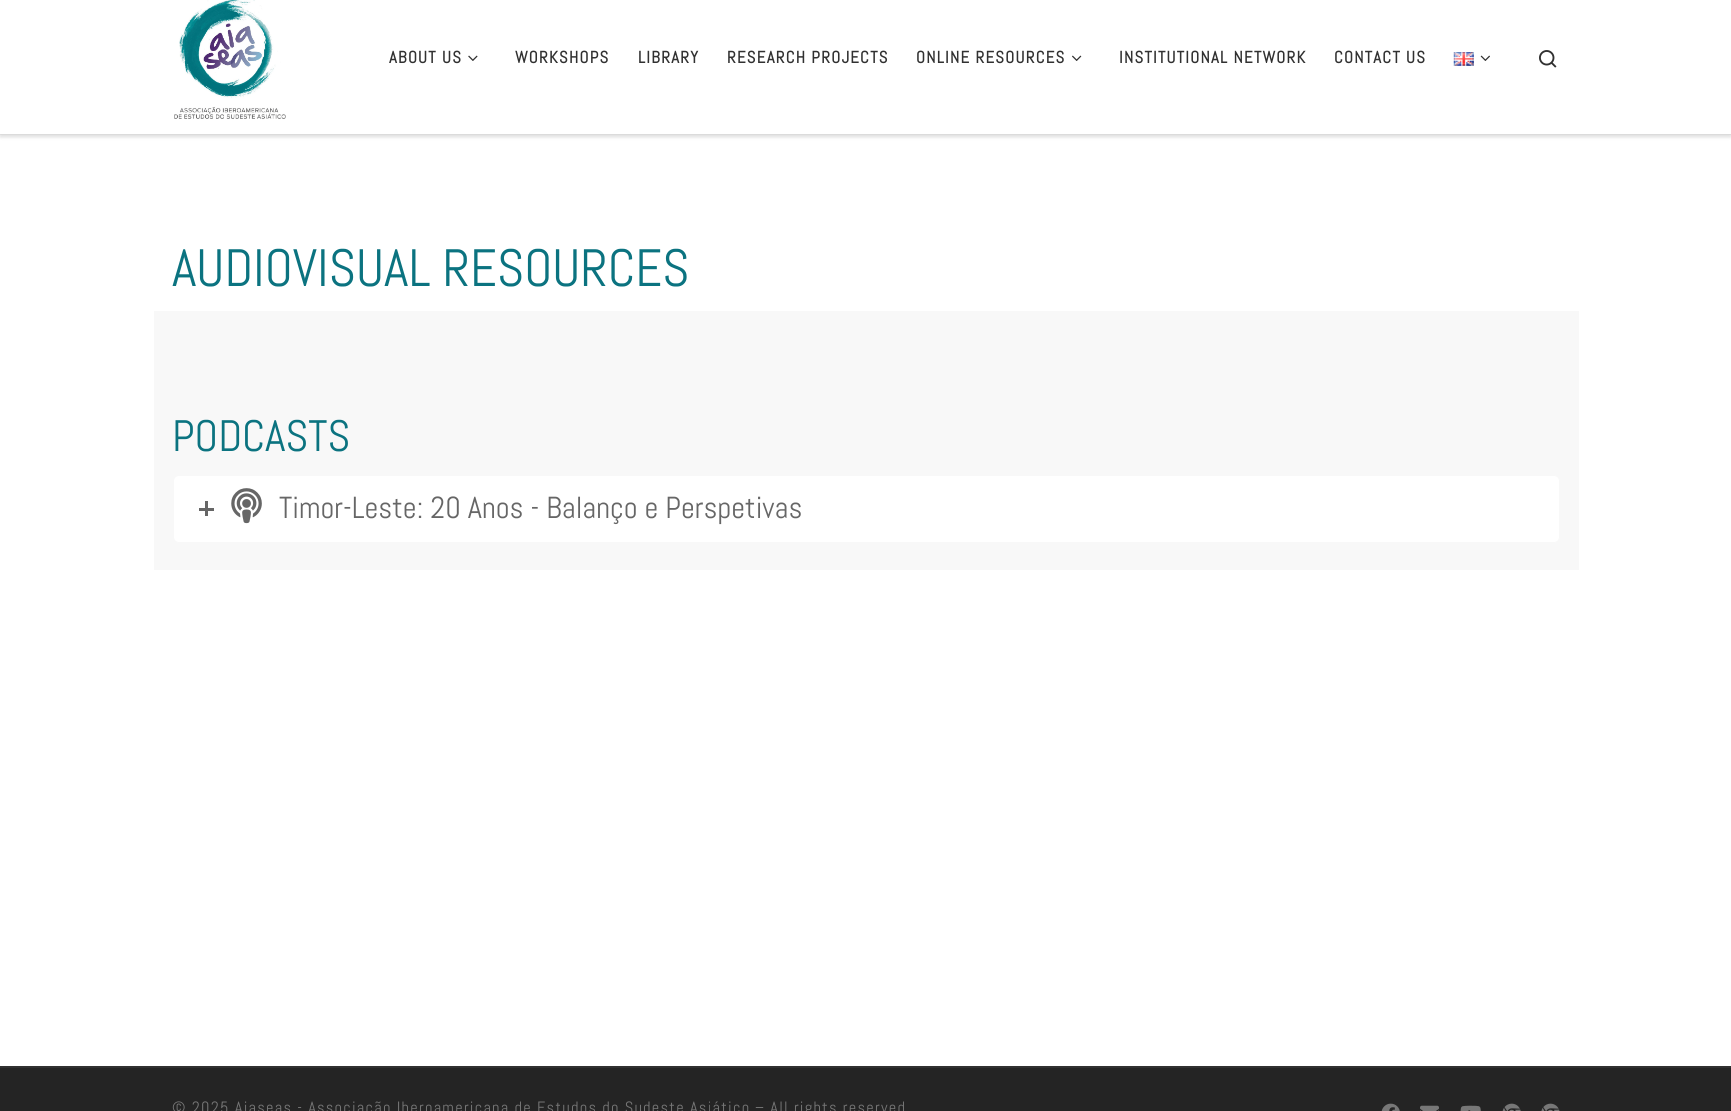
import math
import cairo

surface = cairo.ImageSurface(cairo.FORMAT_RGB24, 1731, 1111)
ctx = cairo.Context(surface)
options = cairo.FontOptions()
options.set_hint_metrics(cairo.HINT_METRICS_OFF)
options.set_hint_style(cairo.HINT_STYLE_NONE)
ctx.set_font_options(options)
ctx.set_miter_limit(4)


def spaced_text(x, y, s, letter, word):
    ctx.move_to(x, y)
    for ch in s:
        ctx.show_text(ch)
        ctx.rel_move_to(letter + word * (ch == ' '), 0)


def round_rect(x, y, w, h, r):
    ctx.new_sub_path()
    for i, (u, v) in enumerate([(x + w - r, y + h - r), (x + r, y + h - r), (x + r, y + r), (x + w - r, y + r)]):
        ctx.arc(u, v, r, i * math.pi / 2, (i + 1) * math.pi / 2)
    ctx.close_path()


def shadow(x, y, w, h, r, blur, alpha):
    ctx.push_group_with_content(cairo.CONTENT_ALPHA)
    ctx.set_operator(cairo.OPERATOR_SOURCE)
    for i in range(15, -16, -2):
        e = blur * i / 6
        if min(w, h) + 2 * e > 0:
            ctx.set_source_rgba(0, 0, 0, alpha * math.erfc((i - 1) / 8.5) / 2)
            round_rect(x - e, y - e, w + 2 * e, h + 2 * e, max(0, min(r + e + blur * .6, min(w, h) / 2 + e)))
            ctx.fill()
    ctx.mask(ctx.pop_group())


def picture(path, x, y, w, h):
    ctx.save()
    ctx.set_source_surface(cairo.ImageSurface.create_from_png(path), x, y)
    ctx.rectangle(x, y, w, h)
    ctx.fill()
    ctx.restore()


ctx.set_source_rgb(1, 1, 1)
ctx.paint()
ctx.set_source_rgb(0.4, 0.4, 0.4)
shadow(0, -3, 1731, 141, 0, 1, 0.08)
ctx.set_source_rgb(0.937, 0.937, 0.937)
ctx.rectangle(0, 134, 1731, 1)
ctx.fill()
ctx.set_source_rgb(0, 0, 0)
shadow(0, -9, 1731, 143, 0, 3, 0.2)
ctx.set_source_rgb(1, 1, 1)
ctx.rectangle(0, 0, 1731, 134)
ctx.fill()
picture("img1.png", 174, 0, 112, 119)
ctx.select_font_face("Abel", cairo.FONT_SLANT_NORMAL, cairo.FONT_WEIGHT_BOLD)
ctx.set_font_size(16.75)
ctx.set_source_rgb(0.192, 0.192, 0.192)
spaced_text(389, 63, "ABOUT US", 1.25, 0)
picture("img2.png", 468, 55, 10, 6)
spaced_text(515, 63, "WORKSHOPS", 1.25, 0)
spaced_text(638, 63, "LIBRARY", 1.25, 0)
spaced_text(727, 63, "RESEARCH PROJECTS", 1.25, 0)
spaced_text(916, 63, "ONLINE RESOURCES", 1.25, 0)
picture("img3.png", 1072, 55, 10, 6)
spaced_text(1119, 63, "INSTITUTIONAL NETWORK", 1.25, 0)
spaced_text(1334, 63, "CONTACT US", 1.25, 0)
picture("img4.png", 1453, 52, 21, 14)
picture("img5.png", 1480, 55, 10, 6)
picture("img6.png", 1539, 50, 18, 18)
ctx.select_font_face("Abel")
ctx.set_font_size(52.5)
ctx.set_source_rgb(0.043, 0.451, 0.502)
ctx.move_to(172, 286)
ctx.show_text("AUDIOVISUAL RESOURCES")
ctx.set_source_rgb(0.969, 0.969, 0.969)
ctx.rectangle(154, 311, 1425, 259)
ctx.fill()
ctx.set_font_size(44)
ctx.set_source_rgb(0.043, 0.451, 0.502)
ctx.move_to(172, 451)
ctx.show_text("PODCASTS")
ctx.set_source_rgb(1, 1, 1)
round_rect(173.5, 475.5, 1386, 67, 5.5)
ctx.fill_preserve()
ctx.set_source_rgb(0.969, 0.969, 0.969)
ctx.set_line_width(1)
ctx.stroke()
ctx.set_source_rgb(0.4, 0.4, 0.4)
ctx.rectangle(199, 508, 15, 3)
ctx.fill()
ctx.rectangle(205, 501, 3, 15)
ctx.fill()
picture("img7.png", 231, 488, 31, 36)
ctx.set_font_size(30.4)
ctx.move_to(279, 518)
ctx.show_text("Timor-Leste: 20 Anos - Balanço e Perspetivas")
ctx.set_source_rgb(0.192, 0.192, 0.192)
ctx.rectangle(0, 1066, 1731, 2)
ctx.fill()
ctx.set_source_rgb(0.141, 0.141, 0.141)
ctx.rectangle(0, 1068, 1731, 43)
ctx.fill()
ctx.set_font_size(16.4)
ctx.set_source_rgb(0.467, 0.467, 0.467)
spaced_text(172, 1113, "© 2025 Aiaseas - Associação Iberoamericana de Estudos do Sudeste Asiático", 1.25, 0)
spaced_text(755, 1113, "– All rights reserved", 1.25, 0)
picture("img8.png", 1381, 1103, 19, 8)
picture("img9.png", 1420, 1105, 19, 6)
picture("img10.png", 1460, 1105, 21, 6)
picture("img11.png", 1502, 1103, 19, 8)
picture("img12.png", 1541, 1103, 19, 8)
surface.write_to_png("page.png")
